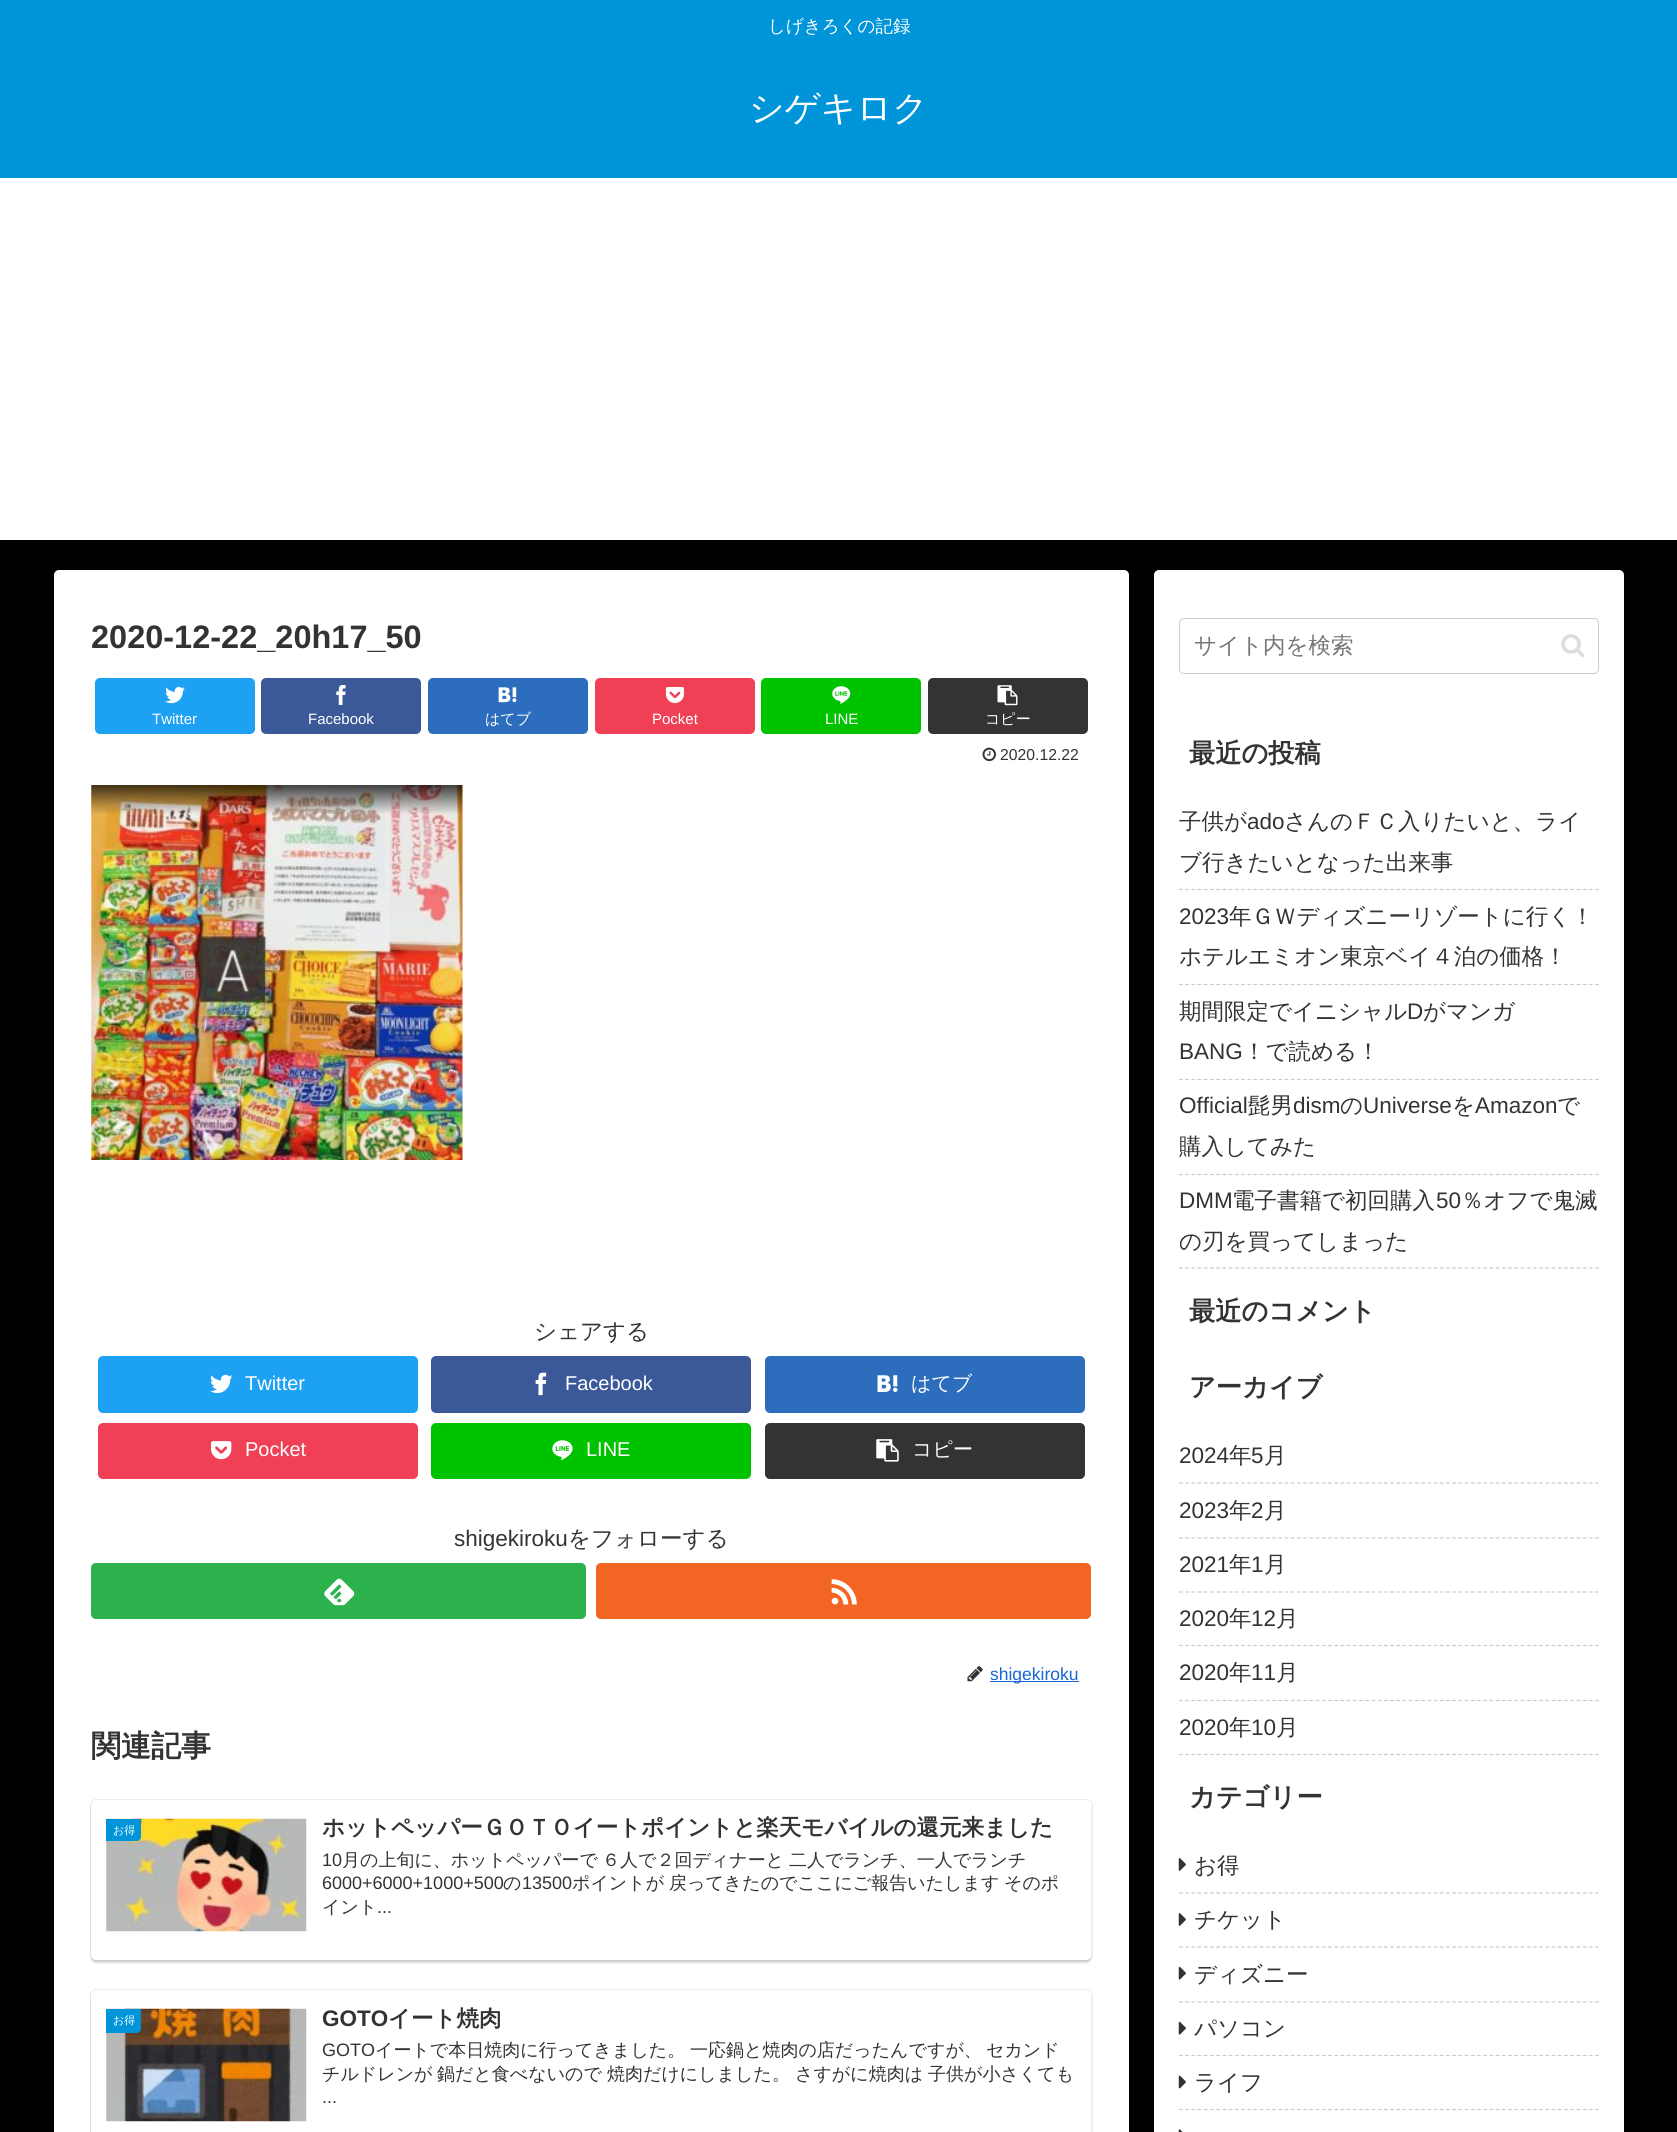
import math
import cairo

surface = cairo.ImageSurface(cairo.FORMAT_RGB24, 1677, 2132)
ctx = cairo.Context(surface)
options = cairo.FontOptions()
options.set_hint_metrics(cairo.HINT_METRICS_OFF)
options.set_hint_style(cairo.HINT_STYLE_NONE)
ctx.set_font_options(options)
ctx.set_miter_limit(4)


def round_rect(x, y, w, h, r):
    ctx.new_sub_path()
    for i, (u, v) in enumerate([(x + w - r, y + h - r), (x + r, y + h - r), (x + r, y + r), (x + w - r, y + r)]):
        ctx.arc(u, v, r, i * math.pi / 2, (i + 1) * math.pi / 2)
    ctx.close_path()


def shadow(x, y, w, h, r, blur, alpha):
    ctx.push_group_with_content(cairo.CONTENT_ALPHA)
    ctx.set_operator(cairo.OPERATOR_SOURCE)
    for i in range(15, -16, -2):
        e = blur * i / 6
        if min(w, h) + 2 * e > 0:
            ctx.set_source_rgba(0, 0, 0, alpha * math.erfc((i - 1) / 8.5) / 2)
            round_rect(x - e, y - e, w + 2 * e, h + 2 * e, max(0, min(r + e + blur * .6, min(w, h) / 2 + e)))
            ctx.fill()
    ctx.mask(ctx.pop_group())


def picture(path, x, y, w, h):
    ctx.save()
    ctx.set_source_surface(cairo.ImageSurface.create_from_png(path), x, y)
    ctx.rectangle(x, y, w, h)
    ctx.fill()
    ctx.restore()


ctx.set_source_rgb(0, 0, 0)
ctx.paint()
ctx.set_source_rgb(1, 1, 1)
ctx.rectangle(0, 178, 1677, 362)
ctx.fill()
ctx.set_source_rgb(0, 0.584, 0.851)
ctx.rectangle(0, 0, 1677, 178)
ctx.fill()
ctx.select_font_face("WenQuanYi Zen Hei Medium")
ctx.set_font_size(17.5)
ctx.set_source_rgb(1, 1, 1)
ctx.move_to(768, 32)
ctx.show_text("しげきろくの記録")
ctx.set_font_size(35)
ctx.move_to(749, 120)
ctx.show_text("シゲキロク")
round_rect(54, 570, 1075, 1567, 5)
ctx.fill()
ctx.select_font_face("Liberation Sans", cairo.FONT_SLANT_NORMAL, cairo.FONT_WEIGHT_BOLD)
ctx.set_font_size(32.5)
ctx.set_source_rgb(0.2, 0.2, 0.2)
ctx.move_to(91, 648)
ctx.show_text("2020-12-22_20h17_50")
ctx.set_source_rgb(0.114, 0.631, 0.949)
round_rect(95, 678, 160, 56, 5)
ctx.fill()
picture("img1.png", 165, 686, 20, 18)
ctx.select_font_face("Liberation Sans")
ctx.set_font_size(15)
ctx.set_source_rgb(1, 1, 1)
ctx.move_to(152, 724)
ctx.show_text("Twitter")
ctx.set_source_rgb(0.231, 0.349, 0.596)
round_rect(261, 678, 160, 56, 5)
ctx.fill()
picture("img2.png", 336, 685, 10, 20)
ctx.set_source_rgb(1, 1, 1)
ctx.move_to(308, 724)
ctx.show_text("Facebook")
ctx.set_source_rgb(0.173, 0.431, 0.741)
round_rect(428, 678, 160, 56, 5)
ctx.fill()
picture("img3.png", 498, 687, 19, 16)
ctx.select_font_face("WenQuanYi Zen Hei Medium")
ctx.set_source_rgb(1, 1, 1)
ctx.move_to(485, 724)
ctx.show_text("はてブ")
ctx.set_source_rgb(0.937, 0.251, 0.337)
round_rect(595, 678, 160, 56, 5)
ctx.fill()
picture("img4.png", 665, 687, 19, 17)
ctx.select_font_face("Liberation Sans")
ctx.set_source_rgb(1, 1, 1)
ctx.move_to(652, 724)
ctx.show_text("Pocket")
ctx.set_source_rgb(0, 0.765, 0)
round_rect(761, 678, 160, 56, 5)
ctx.fill()
picture("img5.png", 832, 686, 19, 18)
ctx.set_source_rgb(1, 1, 1)
ctx.move_to(825, 724)
ctx.show_text("LINE")
ctx.set_source_rgb(0.2, 0.2, 0.2)
round_rect(928, 678, 160, 56, 5)
ctx.fill()
picture("img6.png", 997, 685, 21, 21)
ctx.select_font_face("WenQuanYi Zen Hei Medium")
ctx.set_source_rgb(1, 1, 1)
ctx.move_to(985, 724)
ctx.show_text("コピー")
picture("img7.png", 982, 747, 14, 15)
ctx.select_font_face("Liberation Sans")
ctx.set_font_size(15.75)
ctx.set_source_rgb(0.2, 0.2, 0.2)
ctx.move_to(1000, 760)
ctx.show_text("2020.12.22")
picture("img8.png", 91, 785, 372, 375)
ctx.select_font_face("WenQuanYi Zen Hei Medium")
ctx.set_font_size(22.5)
ctx.move_to(534, 1339)
ctx.show_text("シェアする")
ctx.set_source_rgb(0.114, 0.631, 0.949)
round_rect(98, 1356, 320, 57, 5)
ctx.fill()
picture("img9.png", 210, 1374, 23, 20)
ctx.select_font_face("Liberation Sans")
ctx.set_font_size(20)
ctx.set_source_rgb(1, 1, 1)
ctx.move_to(245, 1390)
ctx.show_text("Twitter")
ctx.set_source_rgb(0.231, 0.349, 0.596)
round_rect(431, 1356, 320, 57, 5)
ctx.fill()
picture("img10.png", 535, 1372, 12, 24)
ctx.set_source_rgb(1, 1, 1)
ctx.move_to(565, 1390)
ctx.show_text("Facebook")
ctx.set_source_rgb(0.173, 0.431, 0.741)
round_rect(765, 1356, 320, 57, 5)
ctx.fill()
picture("img11.png", 877, 1375, 21, 17)
ctx.select_font_face("WenQuanYi Zen Hei Medium")
ctx.set_source_rgb(1, 1, 1)
ctx.move_to(911, 1390)
ctx.show_text("はてブ")
ctx.set_source_rgb(0.937, 0.251, 0.337)
round_rect(98, 1423, 320, 56, 5)
ctx.fill()
picture("img12.png", 211, 1441, 21, 19)
ctx.select_font_face("Liberation Sans")
ctx.set_source_rgb(1, 1, 1)
ctx.move_to(245, 1456)
ctx.show_text("Pocket")
ctx.set_source_rgb(0, 0.765, 0)
round_rect(431, 1423, 320, 56, 5)
ctx.fill()
picture("img13.png", 552, 1440, 21, 20)
ctx.set_source_rgb(1, 1, 1)
ctx.move_to(586, 1456)
ctx.show_text("LINE")
ctx.set_source_rgb(0.2, 0.2, 0.2)
round_rect(765, 1423, 320, 56, 5)
ctx.fill()
picture("img14.png", 876, 1439, 23, 23)
ctx.select_font_face("WenQuanYi Zen Hei Medium")
ctx.set_source_rgb(1, 1, 1)
ctx.move_to(912, 1456)
ctx.show_text("コピー")
ctx.select_font_face("Liberation Sans")
ctx.set_font_size(22.5)
ctx.set_source_rgb(0.2, 0.2, 0.2)
ctx.move_to(454, 1546)
ctx.show_text("shigekiroku")
ctx.select_font_face("WenQuanYi Zen Hei Medium")
ctx.move_to(568, 1546)
ctx.show_text("をフォローする")
ctx.set_source_rgb(0.169, 0.698, 0.298)
round_rect(91, 1563, 495, 56, 5)
ctx.fill()
picture("img15.png", 324, 1578, 31, 28)
ctx.set_source_rgb(0.949, 0.396, 0.133)
round_rect(596, 1563, 495, 56, 5)
ctx.fill()
picture("img16.png", 831, 1579, 26, 26)
picture("img17.png", 967, 1666, 16, 16)
ctx.set_source_rgb(0.098, 0.404, 0.824)
ctx.rectangle(990, 1681, 89, 1)
ctx.fill()
ctx.select_font_face("Liberation Sans")
ctx.set_font_size(17.5)
ctx.move_to(990, 1680)
ctx.show_text("shigekiroku")
ctx.select_font_face("WenQuanYi Zen Hei", cairo.FONT_SLANT_NORMAL, cairo.FONT_WEIGHT_BOLD)
ctx.set_font_size(30)
ctx.set_source_rgb(0.2, 0.2, 0.2)
ctx.move_to(91, 1756)
ctx.show_text("関連記事")
round_rect(90.5, 1799.5, 1002, 161, 5.5)
ctx.set_source_rgb(0.922, 0.922, 0.922)
ctx.set_line_width(1)
ctx.stroke()
ctx.save()
ctx.set_fill_rule(cairo.FILL_RULE_EVEN_ODD)
ctx.new_path()
ctx.move_to(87, 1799)
ctx.line_to(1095, 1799)
ctx.line_to(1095, 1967)
ctx.line_to(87, 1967)
ctx.close_path()
ctx.move_to(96, 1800)
ctx.line_to(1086, 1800)
ctx.curve_to(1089, 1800, 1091, 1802, 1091, 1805)
ctx.line_to(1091, 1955)
ctx.curve_to(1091, 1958, 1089, 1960, 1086, 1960)
ctx.line_to(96, 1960)
ctx.curve_to(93, 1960, 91, 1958, 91, 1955)
ctx.line_to(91, 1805)
ctx.curve_to(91, 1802, 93, 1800, 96, 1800)
ctx.close_path()
ctx.clip()
ctx.set_source_rgb(0, 0, 0)
shadow(91, 1803, 1000, 160, 5, 1, 0.16)
ctx.restore()
picture("img18.png", 106, 1818, 201, 114)
ctx.set_source_rgb(0, 0.584, 0.851)
ctx.new_path()
ctx.move_to(106, 1819)
ctx.line_to(141, 1819)
ctx.line_to(141, 1837)
ctx.curve_to(141, 1839, 139, 1841, 137, 1841)
ctx.line_to(106, 1841)
ctx.close_path()
ctx.fill()
ctx.select_font_face("WenQuanYi Zen Hei Medium")
ctx.set_font_size(11)
ctx.set_source_rgb(1, 1, 1)
ctx.move_to(113, 1834)
ctx.show_text("お得")
ctx.select_font_face("WenQuanYi Zen Hei", cairo.FONT_SLANT_NORMAL, cairo.FONT_WEIGHT_BOLD)
ctx.set_font_size(22.5)
ctx.set_source_rgb(0.2, 0.2, 0.2)
ctx.move_to(322, 1835)
ctx.show_text("ホットペッパーＧＯＴＯイートポイントと楽天モバイルの還元来ました")
ctx.select_font_face("Liberation Sans")
ctx.set_font_size(18)
ctx.move_to(322, 1866)
ctx.show_text("10")
ctx.select_font_face("WenQuanYi Zen Hei Medium")
ctx.move_to(342, 1866)
ctx.show_text("月の上旬に、ホットペッパーで")
ctx.move_to(602, 1866)
ctx.show_text("６人で２回ディナーと")
ctx.move_to(789, 1866)
ctx.show_text("二人でランチ、一人でランチ")
ctx.select_font_face("Liberation Sans")
ctx.move_to(322, 1889)
ctx.show_text("6000+6000+1000+500")
ctx.select_font_face("WenQuanYi Zen Hei Medium")
ctx.move_to(503, 1889)
ctx.show_text("の")
ctx.select_font_face("Liberation Sans")
ctx.move_to(522, 1889)
ctx.show_text("13500")
ctx.select_font_face("WenQuanYi Zen Hei Medium")
ctx.move_to(572, 1889)
ctx.show_text("ポイントが")
ctx.move_to(669, 1889)
ctx.show_text("戻ってきたのでここにご報告いたします")
ctx.move_to(1004, 1889)
ctx.show_text("そのポ")
ctx.move_to(322, 1913)
ctx.show_text("イント")
ctx.select_font_face("Liberation Sans")
ctx.move_to(377, 1913)
ctx.show_text("...")
round_rect(90.5, 1989.5, 1002, 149, 5.5)
ctx.set_source_rgb(0.922, 0.922, 0.922)
ctx.stroke()
ctx.save()
ctx.set_fill_rule(cairo.FILL_RULE_EVEN_ODD)
ctx.new_path()
ctx.move_to(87, 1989)
ctx.line_to(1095, 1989)
ctx.line_to(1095, 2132)
ctx.line_to(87, 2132)
ctx.close_path()
ctx.move_to(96, 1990)
ctx.line_to(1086, 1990)
ctx.curve_to(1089, 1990, 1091, 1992, 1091, 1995)
ctx.line_to(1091, 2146)
ctx.curve_to(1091, 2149, 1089, 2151, 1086, 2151)
ctx.line_to(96, 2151)
ctx.curve_to(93, 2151, 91, 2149, 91, 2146)
ctx.line_to(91, 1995)
ctx.curve_to(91, 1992, 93, 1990, 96, 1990)
ctx.close_path()
ctx.clip()
ctx.set_source_rgb(0, 0, 0)
shadow(91, 1993, 1000, 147, 5, 1, 0.16)
ctx.restore()
picture("img19.png", 106, 2008, 201, 114)
ctx.set_source_rgb(0, 0.584, 0.851)
ctx.new_path()
ctx.move_to(106, 2009)
ctx.line_to(141, 2009)
ctx.line_to(141, 2029)
ctx.curve_to(141, 2031, 139, 2033, 137, 2033)
ctx.line_to(106, 2033)
ctx.close_path()
ctx.fill()
ctx.select_font_face("WenQuanYi Zen Hei Medium")
ctx.set_font_size(11)
ctx.set_source_rgb(1, 1, 1)
ctx.move_to(113, 2024)
ctx.show_text("お得")
ctx.select_font_face("Liberation Sans", cairo.FONT_SLANT_NORMAL, cairo.FONT_WEIGHT_BOLD)
ctx.set_font_size(22.5)
ctx.set_source_rgb(0.2, 0.2, 0.2)
ctx.move_to(322, 2026)
ctx.show_text("GOTO")
ctx.select_font_face("WenQuanYi Zen Hei", cairo.FONT_SLANT_NORMAL, cairo.FONT_WEIGHT_BOLD)
ctx.move_to(388, 2026)
ctx.show_text("イート焼肉")
ctx.select_font_face("Liberation Sans")
ctx.set_font_size(18)
ctx.move_to(322, 2056)
ctx.show_text("GOTO")
ctx.select_font_face("WenQuanYi Zen Hei Medium")
ctx.move_to(375, 2056)
ctx.show_text("イートで本日焼肉に行ってきました。")
ctx.move_to(690, 2056)
ctx.show_text("一応鍋と焼肉の店だったんですが、")
ctx.move_to(986, 2056)
ctx.show_text("セカンド")
ctx.move_to(322, 2080)
ctx.show_text("チルドレンが")
ctx.move_to(437, 2080)
ctx.show_text("鍋だと食べないので")
ctx.move_to(607, 2080)
ctx.show_text("焼肉だけにしました。")
ctx.move_to(795, 2080)
ctx.show_text("さすがに焼肉は")
ctx.move_to(928, 2080)
ctx.show_text("子供が小さくても")
ctx.select_font_face("Liberation Sans")
ctx.move_to(322, 2103)
ctx.show_text("...")
ctx.set_source_rgb(1, 1, 1)
round_rect(1154, 570, 470, 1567, 5)
ctx.fill()
round_rect(1179.5, 618.5, 419, 55, 4.5)
ctx.set_source_rgb(0.8, 0.8, 0.8)
ctx.stroke()
ctx.select_font_face("WenQuanYi Zen Hei Medium")
ctx.set_font_size(22.5)
ctx.set_source_rgb(0.459, 0.459, 0.459)
ctx.move_to(1194, 653)
ctx.show_text("サイト内を検索")
picture("img20.png", 1561, 634, 24, 24)
ctx.select_font_face("WenQuanYi Zen Hei", cairo.FONT_SLANT_NORMAL, cairo.FONT_WEIGHT_BOLD)
ctx.set_font_size(26.25)
ctx.set_source_rgb(0.2, 0.2, 0.2)
ctx.move_to(1189, 762)
ctx.show_text("最近の投稿")
ctx.new_path()
ctx.move_to(1179, 889.5)
ctx.line_to(1599, 889.5)
ctx.set_source_rgb(0.8, 0.8, 0.8)
ctx.set_line_width(1.2)
ctx.set_dash([3.75, 2.46])
ctx.stroke()
ctx.select_font_face("WenQuanYi Zen Hei Medium")
ctx.set_font_size(22.5)
ctx.set_source_rgb(0.2, 0.2, 0.2)
ctx.move_to(1179, 829)
ctx.show_text("子供が")
ctx.select_font_face("Liberation Sans")
ctx.move_to(1247, 829)
ctx.show_text("ado")
ctx.select_font_face("WenQuanYi Zen Hei Medium")
ctx.move_to(1284, 829)
ctx.show_text("さんのＦＣ入りたいと、ライ")
ctx.move_to(1179, 870)
ctx.show_text("ブ行きたいとなった出来事")
ctx.new_path()
ctx.move_to(1179, 984.5)
ctx.line_to(1599, 984.5)
ctx.set_source_rgb(0.8, 0.8, 0.8)
ctx.stroke()
ctx.select_font_face("Liberation Sans")
ctx.set_source_rgb(0.2, 0.2, 0.2)
ctx.move_to(1179, 924)
ctx.show_text("2023")
ctx.select_font_face("WenQuanYi Zen Hei Medium")
ctx.move_to(1229, 924)
ctx.show_text("年ＧＷディズニーリゾートに行く！")
ctx.move_to(1179, 964)
ctx.show_text("ホテルエミオン東京ベイ４泊の価格！")
ctx.new_path()
ctx.move_to(1179, 1079.5)
ctx.line_to(1599, 1079.5)
ctx.set_source_rgb(0.8, 0.8, 0.8)
ctx.stroke()
ctx.set_source_rgb(0.2, 0.2, 0.2)
ctx.move_to(1179, 1019)
ctx.show_text("期間限定でイニシャル")
ctx.select_font_face("Liberation Sans")
ctx.move_to(1407, 1019)
ctx.show_text("D")
ctx.select_font_face("WenQuanYi Zen Hei Medium")
ctx.move_to(1423, 1019)
ctx.show_text("がマンガ")
ctx.select_font_face("Liberation Sans")
ctx.move_to(1179, 1059)
ctx.show_text("BANG")
ctx.select_font_face("WenQuanYi Zen Hei Medium")
ctx.move_to(1243, 1059)
ctx.show_text("！で読める！")
ctx.new_path()
ctx.move_to(1179, 1174.5)
ctx.line_to(1599, 1174.5)
ctx.set_source_rgb(0.8, 0.8, 0.8)
ctx.stroke()
ctx.select_font_face("Liberation Sans")
ctx.set_source_rgb(0.2, 0.2, 0.2)
ctx.move_to(1179, 1113)
ctx.show_text("Official")
ctx.select_font_face("WenQuanYi Zen Hei Medium")
ctx.move_to(1248, 1113)
ctx.show_text("髭男")
ctx.select_font_face("Liberation Sans")
ctx.move_to(1293, 1113)
ctx.show_text("dism")
ctx.select_font_face("WenQuanYi Zen Hei Medium")
ctx.move_to(1340, 1113)
ctx.show_text("の")
ctx.select_font_face("Liberation Sans")
ctx.move_to(1363, 1113)
ctx.show_text("Universe")
ctx.select_font_face("WenQuanYi Zen Hei Medium")
ctx.move_to(1452, 1113)
ctx.show_text("を")
ctx.select_font_face("Liberation Sans")
ctx.move_to(1475, 1113)
ctx.show_text("Amazon")
ctx.select_font_face("WenQuanYi Zen Hei Medium")
ctx.move_to(1557, 1113)
ctx.show_text("で")
ctx.move_to(1179, 1154)
ctx.show_text("購入してみた")
ctx.new_path()
ctx.move_to(1179, 1268)
ctx.line_to(1599, 1268)
ctx.set_source_rgb(0.8, 0.8, 0.8)
ctx.stroke()
ctx.select_font_face("Liberation Sans")
ctx.set_source_rgb(0.2, 0.2, 0.2)
ctx.move_to(1179, 1208)
ctx.show_text("DMM")
ctx.select_font_face("WenQuanYi Zen Hei Medium")
ctx.move_to(1232, 1208)
ctx.show_text("電子書籍で初回購入")
ctx.select_font_face("Liberation Sans")
ctx.move_to(1436, 1208)
ctx.show_text("50")
ctx.select_font_face("WenQuanYi Zen Hei Medium")
ctx.move_to(1461, 1208)
ctx.show_text("％オフで鬼滅")
ctx.move_to(1179, 1249)
ctx.show_text("の刃を買ってしまった")
ctx.select_font_face("WenQuanYi Zen Hei", cairo.FONT_SLANT_NORMAL, cairo.FONT_WEIGHT_BOLD)
ctx.set_font_size(26.25)
ctx.move_to(1189, 1320)
ctx.show_text("最近のコメント")
ctx.move_to(1189, 1396)
ctx.show_text("アーカイブ")
ctx.new_path()
ctx.move_to(1179, 1483)
ctx.line_to(1599, 1483)
ctx.set_source_rgb(0.8, 0.8, 0.8)
ctx.stroke()
ctx.select_font_face("Liberation Sans")
ctx.set_font_size(22.5)
ctx.set_source_rgb(0.2, 0.2, 0.2)
ctx.move_to(1179, 1463)
ctx.show_text("2024")
ctx.select_font_face("WenQuanYi Zen Hei Medium")
ctx.move_to(1229, 1463)
ctx.show_text("年")
ctx.select_font_face("Liberation Sans")
ctx.move_to(1251, 1463)
ctx.show_text("5")
ctx.select_font_face("WenQuanYi Zen Hei Medium")
ctx.move_to(1264, 1463)
ctx.show_text("月")
ctx.new_path()
ctx.move_to(1179, 1538)
ctx.line_to(1599, 1538)
ctx.set_source_rgb(0.8, 0.8, 0.8)
ctx.stroke()
ctx.select_font_face("Liberation Sans")
ctx.set_source_rgb(0.2, 0.2, 0.2)
ctx.move_to(1179, 1518)
ctx.show_text("2023")
ctx.select_font_face("WenQuanYi Zen Hei Medium")
ctx.move_to(1229, 1518)
ctx.show_text("年")
ctx.select_font_face("Liberation Sans")
ctx.move_to(1251, 1518)
ctx.show_text("2")
ctx.select_font_face("WenQuanYi Zen Hei Medium")
ctx.move_to(1264, 1518)
ctx.show_text("月")
ctx.new_path()
ctx.move_to(1179, 1592)
ctx.line_to(1599, 1592)
ctx.set_source_rgb(0.8, 0.8, 0.8)
ctx.stroke()
ctx.select_font_face("Liberation Sans")
ctx.set_source_rgb(0.2, 0.2, 0.2)
ctx.move_to(1179, 1572)
ctx.show_text("2021")
ctx.select_font_face("WenQuanYi Zen Hei Medium")
ctx.move_to(1229, 1572)
ctx.show_text("年")
ctx.select_font_face("Liberation Sans")
ctx.move_to(1251, 1572)
ctx.show_text("1")
ctx.select_font_face("WenQuanYi Zen Hei Medium")
ctx.move_to(1264, 1572)
ctx.show_text("月")
ctx.new_path()
ctx.move_to(1179, 1645.5)
ctx.line_to(1599, 1645.5)
ctx.set_source_rgb(0.8, 0.8, 0.8)
ctx.stroke()
ctx.select_font_face("Liberation Sans")
ctx.set_source_rgb(0.2, 0.2, 0.2)
ctx.move_to(1179, 1626)
ctx.show_text("2020")
ctx.select_font_face("WenQuanYi Zen Hei Medium")
ctx.move_to(1229, 1626)
ctx.show_text("年")
ctx.select_font_face("Liberation Sans")
ctx.move_to(1251, 1626)
ctx.show_text("12")
ctx.select_font_face("WenQuanYi Zen Hei Medium")
ctx.move_to(1276, 1626)
ctx.show_text("月")
ctx.new_path()
ctx.move_to(1179, 1700.5)
ctx.line_to(1599, 1700.5)
ctx.set_source_rgb(0.8, 0.8, 0.8)
ctx.stroke()
ctx.select_font_face("Liberation Sans")
ctx.set_source_rgb(0.2, 0.2, 0.2)
ctx.move_to(1179, 1680)
ctx.show_text("2020")
ctx.select_font_face("WenQuanYi Zen Hei Medium")
ctx.move_to(1229, 1680)
ctx.show_text("年")
ctx.select_font_face("Liberation Sans")
ctx.move_to(1251, 1680)
ctx.show_text("11")
ctx.select_font_face("WenQuanYi Zen Hei Medium")
ctx.move_to(1276, 1680)
ctx.show_text("月")
ctx.new_path()
ctx.move_to(1179, 1754.5)
ctx.line_to(1599, 1754.5)
ctx.set_source_rgb(0.8, 0.8, 0.8)
ctx.stroke()
ctx.select_font_face("Liberation Sans")
ctx.set_source_rgb(0.2, 0.2, 0.2)
ctx.move_to(1179, 1735)
ctx.show_text("2020")
ctx.select_font_face("WenQuanYi Zen Hei Medium")
ctx.move_to(1229, 1735)
ctx.show_text("年")
ctx.select_font_face("Liberation Sans")
ctx.move_to(1251, 1735)
ctx.show_text("10")
ctx.select_font_face("WenQuanYi Zen Hei Medium")
ctx.move_to(1276, 1735)
ctx.show_text("月")
ctx.select_font_face("WenQuanYi Zen Hei", cairo.FONT_SLANT_NORMAL, cairo.FONT_WEIGHT_BOLD)
ctx.set_font_size(26.25)
ctx.move_to(1189, 1806)
ctx.show_text("カテゴリー")
ctx.new_path()
ctx.move_to(1179, 1893)
ctx.line_to(1599, 1893)
ctx.set_source_rgb(0.8, 0.8, 0.8)
ctx.stroke()
picture("img21.png", 1178, 1858, 8, 13)
ctx.select_font_face("WenQuanYi Zen Hei Medium")
ctx.set_font_size(22.5)
ctx.set_source_rgb(0.2, 0.2, 0.2)
ctx.move_to(1194, 1873)
ctx.show_text("お得")
ctx.new_path()
ctx.move_to(1179, 1947)
ctx.line_to(1599, 1947)
ctx.set_source_rgb(0.8, 0.8, 0.8)
ctx.stroke()
picture("img21.png", 1178, 1913, 8, 13)
ctx.set_source_rgb(0.2, 0.2, 0.2)
ctx.move_to(1194, 1927)
ctx.show_text("チケット")
ctx.new_path()
ctx.move_to(1179, 2002)
ctx.line_to(1599, 2002)
ctx.set_source_rgb(0.8, 0.8, 0.8)
ctx.stroke()
picture("img22.png", 1178, 1966, 8, 14)
ctx.set_source_rgb(0.2, 0.2, 0.2)
ctx.move_to(1194, 1982)
ctx.show_text("ディズニー")
ctx.new_path()
ctx.move_to(1179, 2055.5)
ctx.line_to(1599, 2055.5)
ctx.set_source_rgb(0.8, 0.8, 0.8)
ctx.stroke()
picture("img22.png", 1178, 2021, 8, 14)
ctx.set_source_rgb(0.2, 0.2, 0.2)
ctx.move_to(1194, 2036)
ctx.show_text("パソコン")
ctx.new_path()
ctx.move_to(1179, 2109.5)
ctx.line_to(1599, 2109.5)
ctx.set_source_rgb(0.8, 0.8, 0.8)
ctx.stroke()
picture("img23.png", 1178, 2075, 8, 14)
ctx.set_source_rgb(0.2, 0.2, 0.2)
ctx.move_to(1194, 2090)
ctx.show_text("ライフ")
picture("img24.png", 1178, 2129, 5, 3)
surface.write_to_png("page.png")
